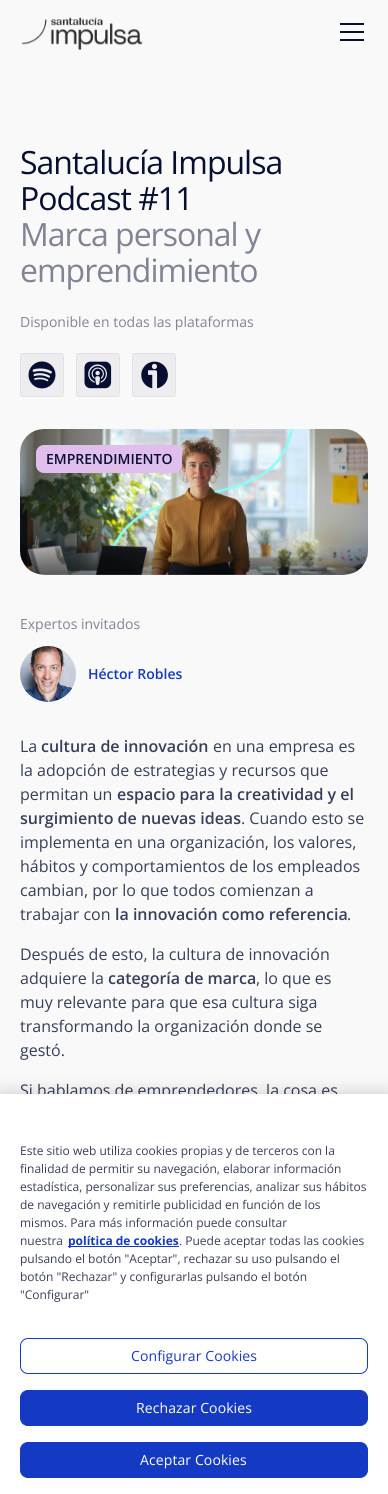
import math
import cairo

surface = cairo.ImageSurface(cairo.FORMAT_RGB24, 388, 1494)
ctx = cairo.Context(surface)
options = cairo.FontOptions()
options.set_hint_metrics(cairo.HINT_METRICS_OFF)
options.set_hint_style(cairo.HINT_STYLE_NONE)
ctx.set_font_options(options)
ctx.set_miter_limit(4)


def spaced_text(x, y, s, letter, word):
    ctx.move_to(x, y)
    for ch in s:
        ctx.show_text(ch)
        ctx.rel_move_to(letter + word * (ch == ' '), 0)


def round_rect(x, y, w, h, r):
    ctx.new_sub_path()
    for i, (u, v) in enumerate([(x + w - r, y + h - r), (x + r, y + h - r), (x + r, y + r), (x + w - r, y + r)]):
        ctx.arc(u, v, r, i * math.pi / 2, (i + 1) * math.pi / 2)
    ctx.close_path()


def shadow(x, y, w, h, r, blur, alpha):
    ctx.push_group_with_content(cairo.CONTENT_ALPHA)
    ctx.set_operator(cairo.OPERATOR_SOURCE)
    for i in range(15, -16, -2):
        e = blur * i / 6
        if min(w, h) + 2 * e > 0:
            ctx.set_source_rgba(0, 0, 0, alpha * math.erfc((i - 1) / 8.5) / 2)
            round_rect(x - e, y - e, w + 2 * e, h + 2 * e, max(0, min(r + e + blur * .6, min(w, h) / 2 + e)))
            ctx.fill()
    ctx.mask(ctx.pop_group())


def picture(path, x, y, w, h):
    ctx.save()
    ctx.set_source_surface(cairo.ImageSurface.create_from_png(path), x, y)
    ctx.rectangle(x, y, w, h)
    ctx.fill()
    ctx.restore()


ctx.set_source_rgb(0.976, 0.976, 0.976)
ctx.paint()
picture("img1.png", 21, 17, 122, 33)
ctx.set_source_rgb(0.024, 0.059, 0.192)
ctx.rectangle(340, 23, 24, 2)
ctx.fill()
ctx.rectangle(340, 31, 24, 2)
ctx.fill()
ctx.rectangle(340, 39, 24, 2)
ctx.fill()
ctx.select_font_face("Open Sans")
ctx.set_font_size(32)
spaced_text(20, 174, "Santalucía Impulsa", -1, 0)
spaced_text(20, 210, "Podcast #11", -1, 0)
ctx.set_source_rgb(0.502, 0.518, 0.584)
spaced_text(20, 246, "Marca personal y", -1, 0)
spaced_text(20, 282, "emprendimiento", -1, 0)
ctx.set_font_size(14)
ctx.move_to(20, 327)
ctx.show_text("Disponible en todas las plataformas")
ctx.set_source_rgb(0.929, 0.929, 0.937)
round_rect(20, 353, 44, 44, 4)
ctx.fill()
ctx.rectangle(20.5, 353.5, 43, 43)
ctx.set_source_rgba(0.024, 0.059, 0.192, 0.05)
ctx.set_line_width(1)
ctx.stroke()
picture("img2.png", 28, 361, 28, 28)
ctx.set_source_rgb(0.929, 0.929, 0.937)
round_rect(76, 353, 44, 44, 4)
ctx.fill()
ctx.rectangle(76.5, 353.5, 43, 43)
ctx.set_source_rgba(0.024, 0.059, 0.192, 0.05)
ctx.stroke()
picture("img3.png", 84, 361, 28, 28)
ctx.set_source_rgb(0.929, 0.929, 0.937)
round_rect(132, 353, 44, 44, 4)
ctx.fill()
ctx.rectangle(132.5, 353.5, 43, 43)
ctx.set_source_rgba(0.024, 0.059, 0.192, 0.05)
ctx.stroke()
picture("img4.png", 141, 361, 27, 28)
picture("img5.png", 20, 429, 348, 146)
ctx.set_source_rgb(0.882, 0.749, 0.929)
round_rect(36, 445, 146, 28, 8)
ctx.fill()
ctx.select_font_face("Open Sans SemiBold")
ctx.set_source_rgb(0.024, 0.059, 0.192)
ctx.move_to(46, 464)
ctx.show_text("EMPRENDIMIENTO")
ctx.select_font_face("Open Sans")
ctx.set_source_rgb(0.502, 0.518, 0.584)
ctx.move_to(20, 629)
ctx.show_text("Expertos invitados")
picture("img6.png", 20, 646, 56, 56)
ctx.select_font_face("Open Sans SemiBold")
ctx.set_source_rgb(0.082, 0.224, 0.765)
ctx.move_to(88, 679)
ctx.show_text("Héctor Robles")
ctx.select_font_face("Open Sans")
ctx.set_font_size(16)
ctx.set_source_rgb(0.216, 0.243, 0.349)
ctx.move_to(20, 752)
ctx.show_text("La")
ctx.select_font_face("Open Sans SemiBold")
ctx.move_to(41, 752)
ctx.show_text("cultura de innovación")
ctx.select_font_face("Open Sans")
ctx.move_to(213, 752)
ctx.show_text("en una empresa es")
ctx.move_to(20, 776)
ctx.show_text("la adopción de estrategias y recursos que")
ctx.move_to(20, 800)
ctx.show_text("permitan un")
ctx.select_font_face("Open Sans SemiBold")
ctx.move_to(117, 800)
ctx.show_text("espacio para la creatividad y el")
ctx.move_to(20, 824)
ctx.show_text("surgimiento de nuevas ideas")
ctx.select_font_face("Open Sans")
ctx.move_to(241, 824)
ctx.show_text(". Cuando esto se")
ctx.move_to(20, 848)
ctx.show_text("implementa en una organización, los valores,")
ctx.move_to(20, 872)
ctx.show_text("hábitos y comportamientos de los empleados")
ctx.move_to(20, 896)
ctx.show_text("cambian, por lo que todos comienzan a")
ctx.move_to(20, 920)
ctx.show_text("trabajar con")
ctx.select_font_face("Open Sans SemiBold")
ctx.move_to(115, 920)
ctx.show_text("la innovación como referencia")
ctx.select_font_face("Open Sans")
ctx.move_to(347, 920)
ctx.show_text(".")
ctx.move_to(20, 960)
ctx.show_text("Después de esto, la cultura de innovación")
ctx.move_to(20, 984)
ctx.show_text("adquiere la")
ctx.select_font_face("Open Sans SemiBold")
ctx.move_to(108, 984)
ctx.show_text("categoría de marca")
ctx.select_font_face("Open Sans")
ctx.move_to(256, 984)
ctx.show_text(", lo que es")
ctx.move_to(20, 1008)
ctx.show_text("muy relevante para que esa cultura siga")
ctx.move_to(20, 1032)
ctx.show_text("transformando la organización donde se")
ctx.move_to(20, 1056)
ctx.show_text("gestó.")
ctx.move_to(20, 1096)
ctx.show_text("Si hablamos de emprendedores, la cosa es")
ctx.set_source_rgb(0, 0, 0)
shadow(0, 1094, 388, 400, 0, 9, 0.2)
ctx.set_source_rgb(1, 1, 1)
ctx.rectangle(0, 1094, 388, 400)
ctx.fill()
ctx.set_font_size(12)
ctx.set_source_rgb(0.216, 0.243, 0.349)
ctx.move_to(20, 1155)
ctx.show_text("Este sitio web utiliza cookies propias y de terceros con la")
ctx.move_to(20, 1173)
ctx.show_text("finalidad de permitir su navegación, elaborar información")
ctx.move_to(20, 1191)
ctx.show_text("estadística, personalizar sus preferencias, analizar sus hábitos")
ctx.move_to(20, 1209)
ctx.show_text("de navegación y remitirle publicidad en función de los")
ctx.move_to(20, 1227)
ctx.show_text("mismos. Para más información puede consultar")
ctx.move_to(20, 1245)
ctx.show_text("nuestra")
ctx.set_source_rgb(0.082, 0.224, 0.765)
ctx.rectangle(68, 1246, 111, 1)
ctx.fill()
ctx.select_font_face("Open Sans", cairo.FONT_SLANT_NORMAL, cairo.FONT_WEIGHT_BOLD)
ctx.move_to(68, 1245)
ctx.show_text("política de cookies")
ctx.select_font_face("Open Sans")
ctx.set_source_rgb(0.216, 0.243, 0.349)
ctx.move_to(179, 1245)
ctx.show_text(". Puede aceptar todas las cookies")
ctx.move_to(20, 1263)
ctx.show_text("pulsando el botón \"Aceptar\", rechazar su uso pulsando el")
ctx.move_to(20, 1281)
ctx.show_text("botón \"Rechazar\" y configurarlas pulsando el botón")
ctx.move_to(20, 1299)
ctx.show_text("\"Configurar\"")
round_rect(20.5, 1338.5, 347, 35, 7.5)
ctx.set_source_rgb(0.082, 0.224, 0.765)
ctx.stroke()
ctx.set_font_size(14)
spaced_text(131, 1361, "Configurar Cookies", 0.1, 0)
round_rect(20.5, 1390.5, 347, 35, 7.5)
ctx.fill_preserve()
ctx.stroke()
ctx.set_source_rgb(1, 1, 1)
spaced_text(136, 1413, "Rechazar Cookies", 0.1, 0)
ctx.set_source_rgb(0.082, 0.224, 0.765)
round_rect(20.5, 1442.5, 347, 35, 7.5)
ctx.fill_preserve()
ctx.stroke()
ctx.set_source_rgb(1, 1, 1)
spaced_text(140, 1465, "Aceptar Cookies", 0.1, 0)
surface.write_to_png("page.png")
